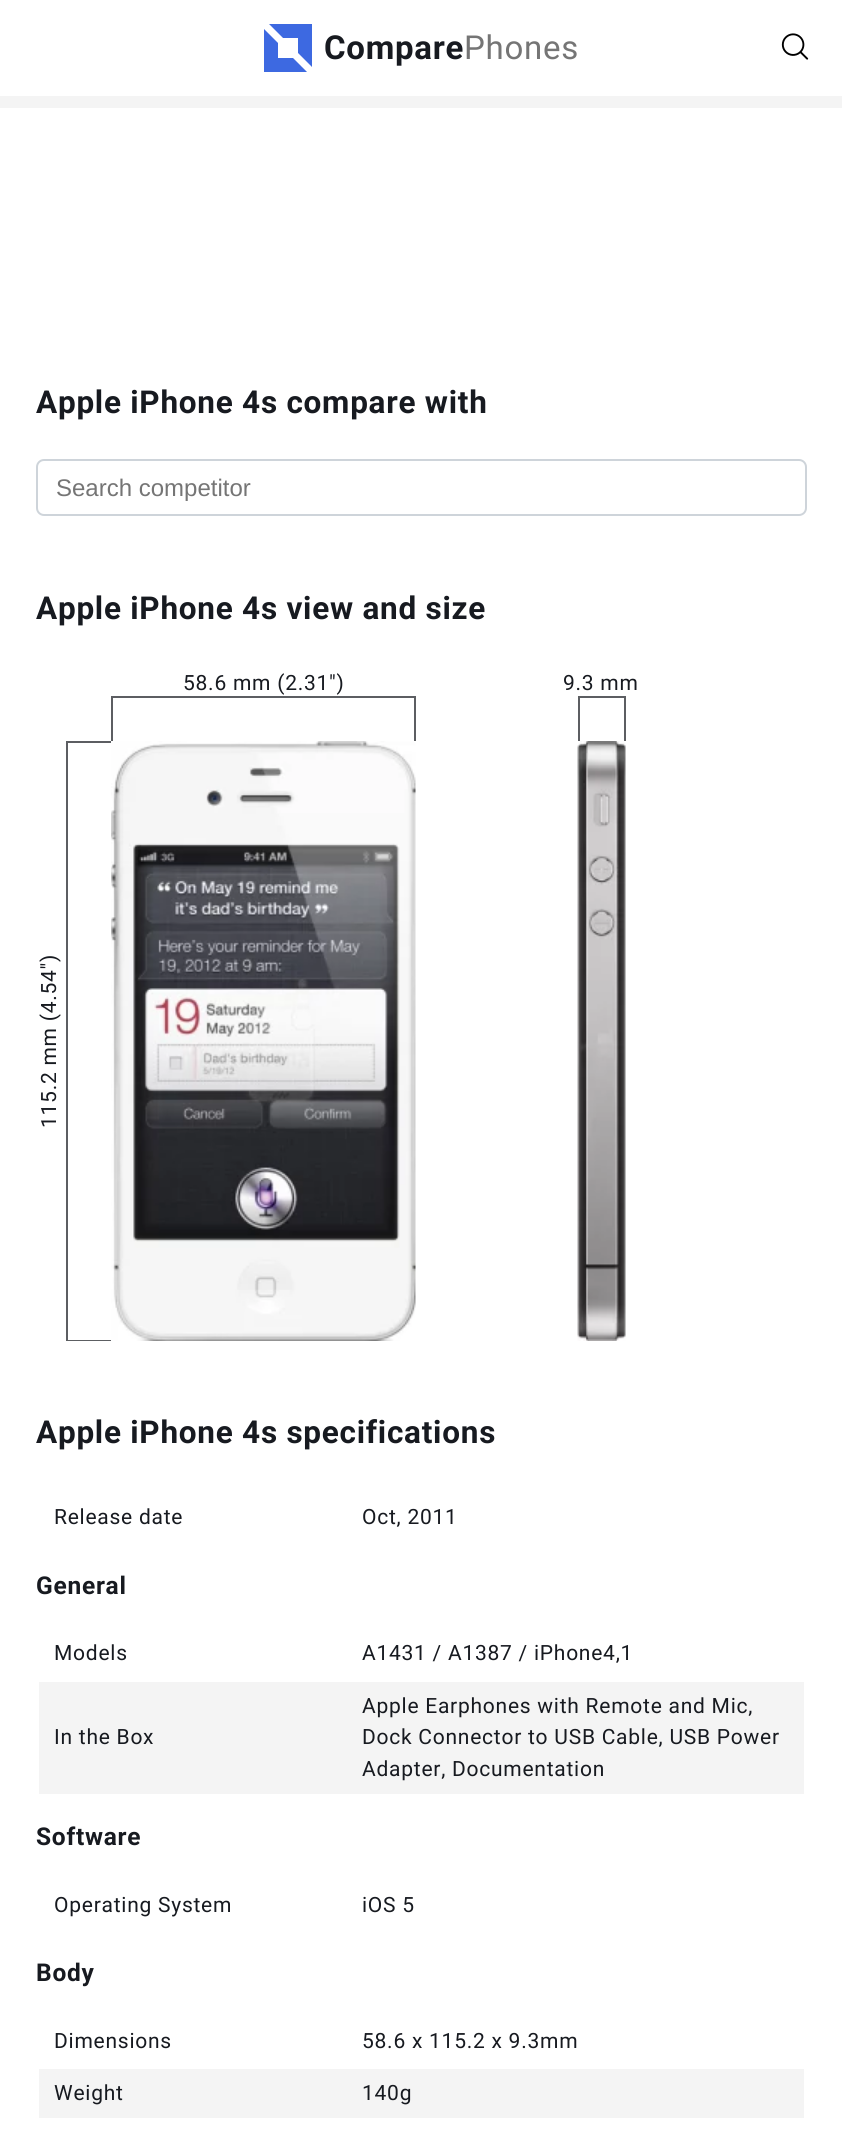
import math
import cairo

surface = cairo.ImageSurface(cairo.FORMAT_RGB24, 842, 2143)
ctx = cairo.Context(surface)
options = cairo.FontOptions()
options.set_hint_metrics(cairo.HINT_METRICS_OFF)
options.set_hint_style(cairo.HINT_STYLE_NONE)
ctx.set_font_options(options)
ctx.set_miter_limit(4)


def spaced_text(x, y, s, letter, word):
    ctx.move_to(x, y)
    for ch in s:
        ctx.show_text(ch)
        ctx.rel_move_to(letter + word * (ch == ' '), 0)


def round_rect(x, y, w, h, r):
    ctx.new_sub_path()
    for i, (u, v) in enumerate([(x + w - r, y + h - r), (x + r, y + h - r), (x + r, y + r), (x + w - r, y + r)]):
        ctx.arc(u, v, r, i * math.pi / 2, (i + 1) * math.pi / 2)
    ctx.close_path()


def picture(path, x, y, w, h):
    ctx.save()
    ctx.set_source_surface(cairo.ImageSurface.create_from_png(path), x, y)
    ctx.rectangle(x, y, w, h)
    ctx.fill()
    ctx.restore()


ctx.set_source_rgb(1, 1, 1)
ctx.paint()
ctx.set_source_rgb(0.957, 0.957, 0.957)
ctx.rectangle(0, 96, 842, 12)
ctx.fill()
ctx.set_source_rgb(0.239, 0.412, 0.882)
ctx.new_path()
ctx.move_to(276, 31)
ctx.line_to(283, 38)
ctx.line_to(298, 38)
ctx.line_to(298, 53)
ctx.line_to(312, 67)
ctx.line_to(312, 24)
ctx.line_to(269, 24)
ctx.close_path()
ctx.move_to(264, 50)
ctx.line_to(264, 72)
ctx.line_to(307, 72)
ctx.line_to(293, 58)
ctx.line_to(278, 58)
ctx.line_to(278, 43)
ctx.line_to(264, 29)
ctx.close_path()
ctx.fill()
ctx.select_font_face("Roboto", cairo.FONT_SLANT_NORMAL, cairo.FONT_WEIGHT_BOLD)
ctx.set_font_size(33)
ctx.set_source_rgb(0.09, 0.102, 0.125)
spaced_text(324, 59, "Compare", 0.75, 0)
ctx.select_font_face("Roboto")
ctx.set_source_rgb(0.459, 0.459, 0.459)
spaced_text(464, 59, "Phones", 0.75, 0)
picture("img1.png", 781, 33, 28, 27)
ctx.select_font_face("Roboto", cairo.FONT_SLANT_NORMAL, cairo.FONT_WEIGHT_BOLD)
ctx.set_font_size(31.5)
ctx.set_source_rgb(0.09, 0.102, 0.125)
spaced_text(36, 413, "Apple iPhone 4s compare with", 0.75, 0)
round_rect(37, 460, 769, 55, 7)
ctx.set_source_rgb(0.808, 0.831, 0.855)
ctx.stroke()
ctx.select_font_face("Liberation Sans")
ctx.set_font_size(24)
ctx.set_source_rgb(0.459, 0.459, 0.459)
ctx.move_to(56, 496)
ctx.show_text("Search competitor")
ctx.select_font_face("Roboto", cairo.FONT_SLANT_NORMAL, cairo.FONT_WEIGHT_BOLD)
ctx.set_font_size(31.5)
ctx.set_source_rgb(0.09, 0.102, 0.125)
spaced_text(36, 619, "Apple iPhone 4s view and size", 0.75, 0)
ctx.set_source_rgb(0.361, 0.369, 0.384)
ctx.rectangle(111, 696, 305, 2)
ctx.fill()
ctx.rectangle(414, 696, 2, 45)
ctx.fill()
ctx.rectangle(111, 696, 2, 45)
ctx.fill()
ctx.select_font_face("Roboto")
ctx.set_font_size(21)
ctx.set_source_rgb(0.09, 0.102, 0.125)
spaced_text(183, 690, "58.6 mm (2.31″)", 0.75, 0)
ctx.set_source_rgb(0.361, 0.369, 0.384)
ctx.rectangle(66, 741, 45, 2)
ctx.fill()
ctx.rectangle(66, 1340, 45, 1)
ctx.fill()
ctx.rectangle(66, 741, 2, 600)
ctx.fill()
ctx.set_source_rgb(0.09, 0.102, 0.125)
ctx.save()
ctx.translate(56, 1128)
ctx.rotate(-90 * math.pi / 180)
spaced_text(0, 0, "115.2 mm (4.54″)", 0.75, 0)
ctx.restore()
picture("img2.png", 111, 741, 305, 600)
ctx.set_source_rgb(0.361, 0.369, 0.384)
ctx.rectangle(578, 696, 48, 2)
ctx.fill()
ctx.rectangle(624, 696, 2, 45)
ctx.fill()
ctx.rectangle(578, 696, 2, 45)
ctx.fill()
ctx.set_source_rgb(0.09, 0.102, 0.125)
spaced_text(563, 690, "9.3 mm", 0.75, 0)
picture("img3.png", 577, 741, 49, 600)
ctx.select_font_face("Roboto", cairo.FONT_SLANT_NORMAL, cairo.FONT_WEIGHT_BOLD)
ctx.set_font_size(31.5)
spaced_text(36, 1443, "Apple iPhone 4s specifications", 0.75, 0)
ctx.select_font_face("Roboto")
ctx.set_font_size(21)
spaced_text(54, 1524, "Release date", 0.75, 0)
spaced_text(362, 1524, "Oct, 2011", 0.75, 0)
ctx.select_font_face("Roboto", cairo.FONT_SLANT_NORMAL, cairo.FONT_WEIGHT_BOLD)
ctx.set_font_size(24.5)
spaced_text(36, 1594, "General", 0.75, 0)
ctx.select_font_face("Roboto")
ctx.set_font_size(21)
spaced_text(54, 1660, "Models", 0.75, 0)
spaced_text(362, 1660, "A1431 / A1387 / iPhone4,1", 0.75, 0)
ctx.set_source_rgb(0.957, 0.957, 0.957)
ctx.rectangle(39, 1682, 765, 112)
ctx.fill()
ctx.set_source_rgb(0.09, 0.102, 0.125)
spaced_text(54, 1744, "In the Box", 0.75, 0)
spaced_text(362, 1713, "Apple Earphones with Remote and Mic,", 0.75, 0)
spaced_text(362, 1744, "Dock Connector to USB Cable, USB Power", 0.75, 0)
spaced_text(362, 1776, "Adapter, Documentation", 0.75, 0)
ctx.select_font_face("Roboto", cairo.FONT_SLANT_NORMAL, cairo.FONT_WEIGHT_BOLD)
ctx.set_font_size(24.5)
spaced_text(36, 1845, "Software", 0.75, 0)
ctx.select_font_face("Roboto")
ctx.set_font_size(21)
spaced_text(54, 1912, "Operating System", 0.75, 0)
spaced_text(362, 1912, "iOS 5", 0.75, 0)
ctx.select_font_face("Roboto", cairo.FONT_SLANT_NORMAL, cairo.FONT_WEIGHT_BOLD)
ctx.set_font_size(24.5)
spaced_text(36, 1981, "Body", 0.75, 0)
ctx.select_font_face("Roboto")
ctx.set_font_size(21)
spaced_text(54, 2048, "Dimensions", 0.75, 0)
spaced_text(362, 2048, "58.6 x 115.2 x 9.3mm", 0.75, 0)
ctx.set_source_rgb(0.957, 0.957, 0.957)
ctx.rectangle(39, 2069, 765, 49)
ctx.fill()
ctx.set_source_rgb(0.09, 0.102, 0.125)
spaced_text(54, 2100, "Weight", 0.75, 0)
spaced_text(362, 2100, "140g", 0.75, 0)
surface.write_to_png("page.png")
